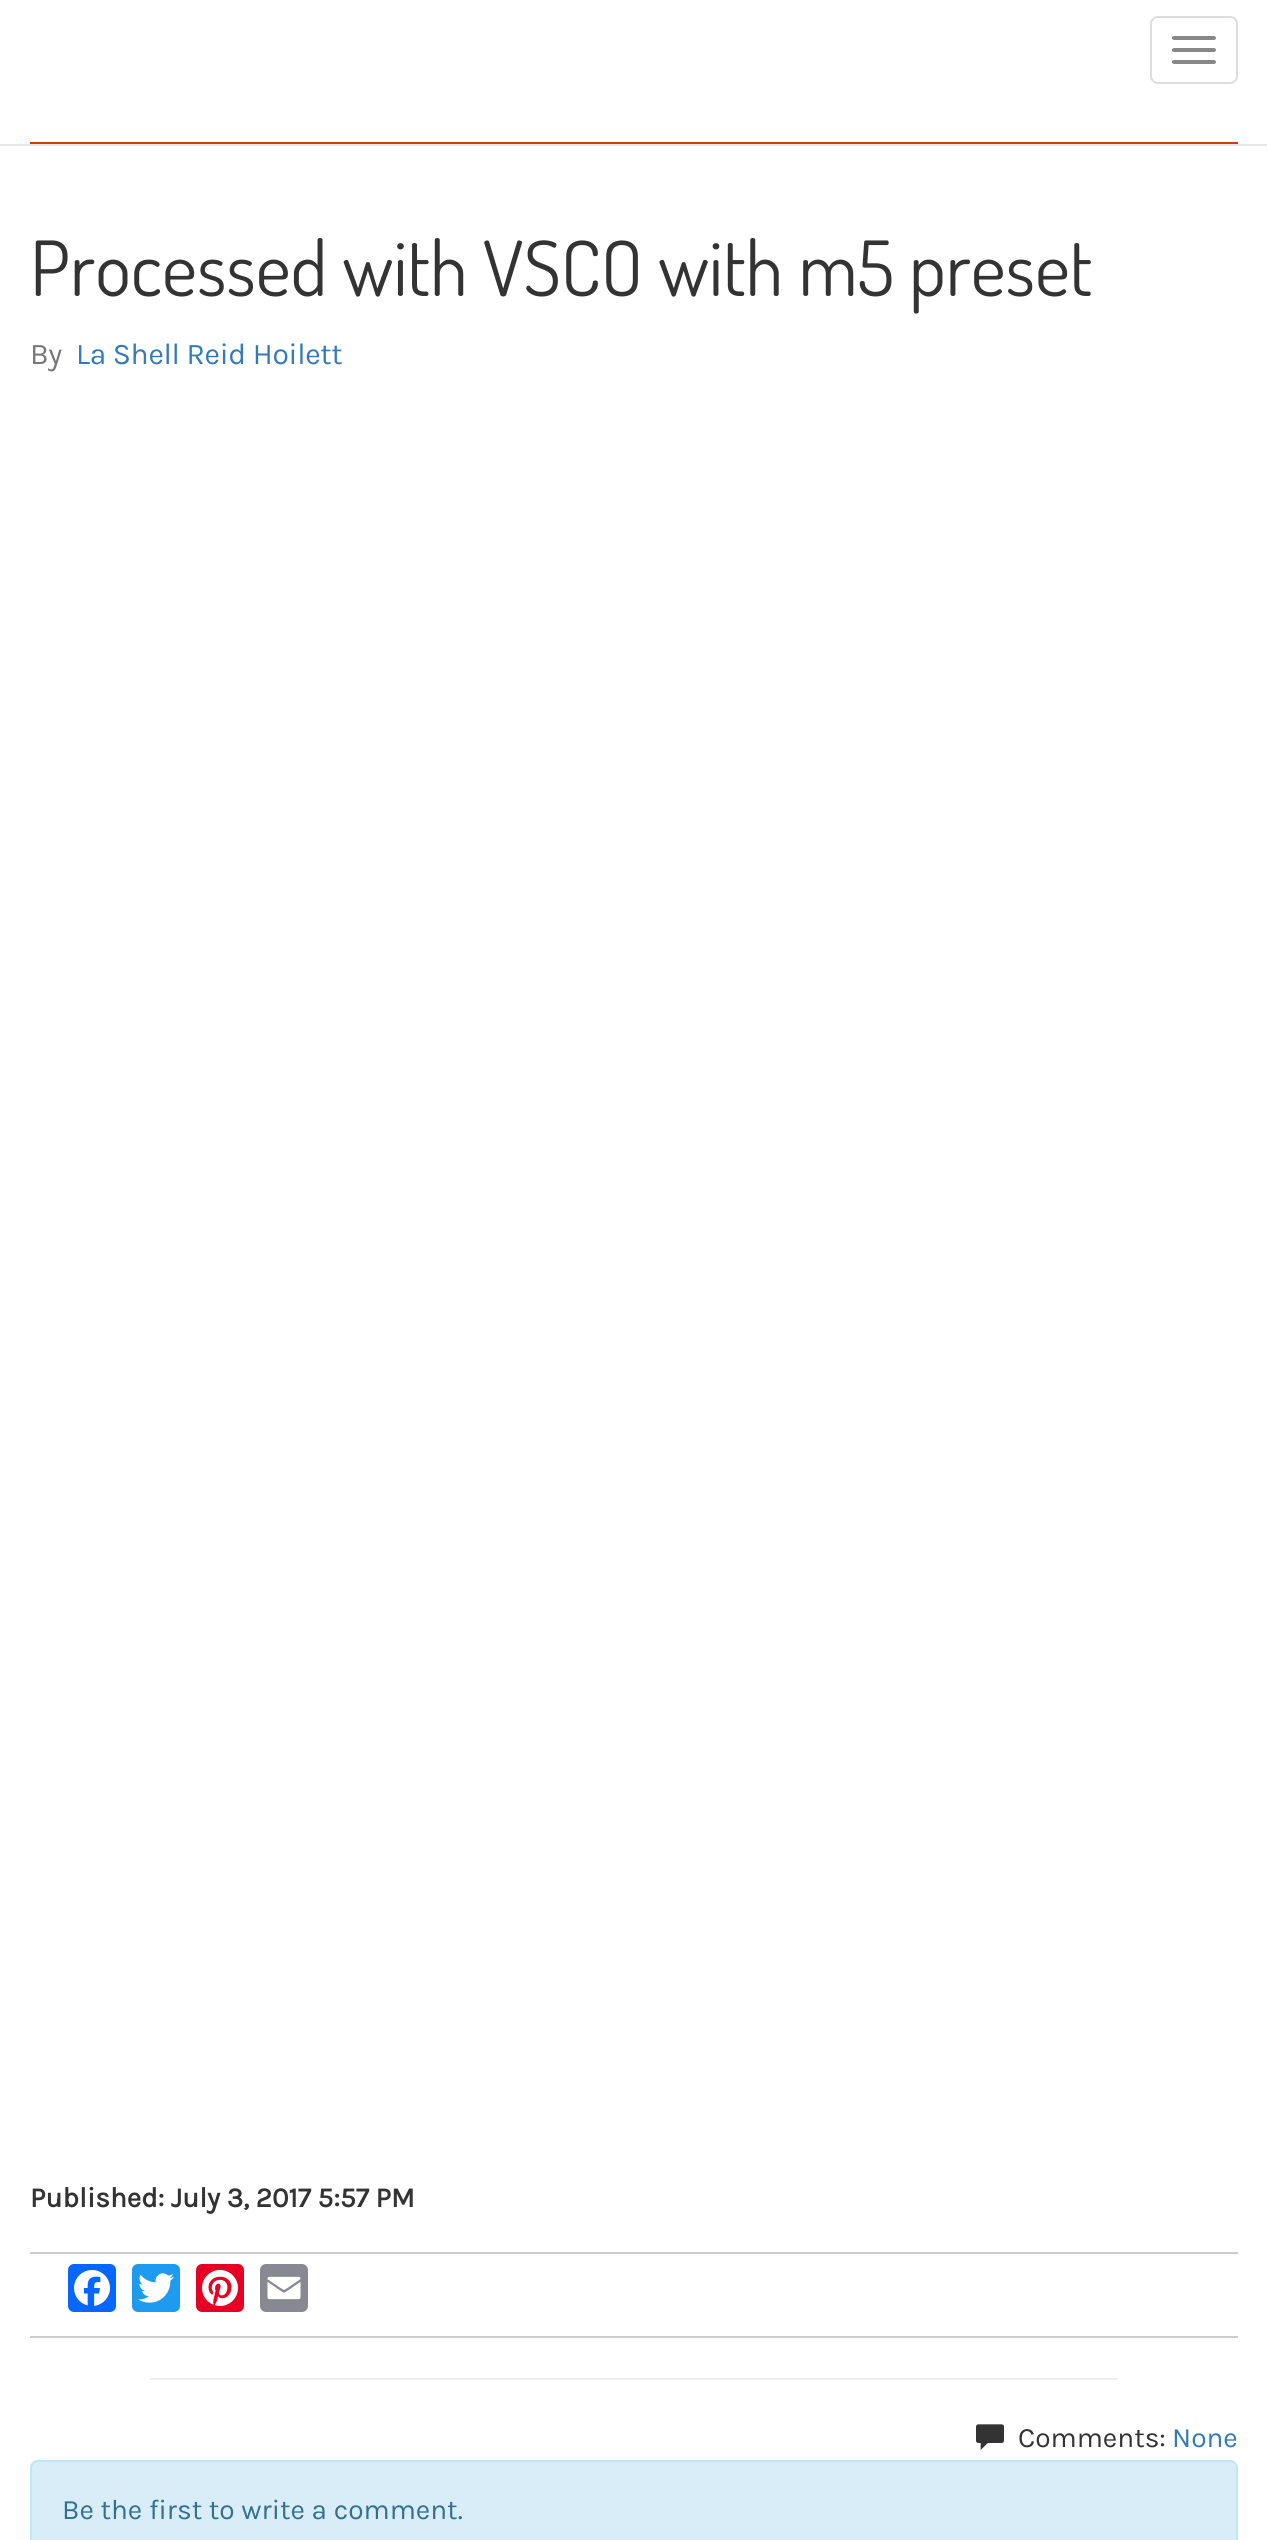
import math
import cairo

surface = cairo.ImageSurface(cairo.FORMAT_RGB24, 1267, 2540)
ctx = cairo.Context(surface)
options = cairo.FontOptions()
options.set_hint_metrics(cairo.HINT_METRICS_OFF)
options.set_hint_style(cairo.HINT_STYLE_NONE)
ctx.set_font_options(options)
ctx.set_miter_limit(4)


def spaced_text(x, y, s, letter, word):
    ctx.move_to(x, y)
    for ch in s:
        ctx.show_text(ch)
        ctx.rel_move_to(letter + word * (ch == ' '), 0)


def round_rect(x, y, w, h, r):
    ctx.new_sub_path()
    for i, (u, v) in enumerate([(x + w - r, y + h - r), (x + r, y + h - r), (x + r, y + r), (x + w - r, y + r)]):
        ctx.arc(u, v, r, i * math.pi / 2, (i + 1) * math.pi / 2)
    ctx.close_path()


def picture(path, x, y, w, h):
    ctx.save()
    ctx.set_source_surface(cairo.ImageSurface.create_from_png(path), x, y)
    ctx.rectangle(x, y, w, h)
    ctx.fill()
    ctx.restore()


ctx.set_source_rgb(1, 1, 1)
ctx.paint()
ctx.set_source_rgb(0.906, 0.906, 0.906)
ctx.rectangle(0, 144, 1267, 2)
ctx.fill()
round_rect(1151, 17, 86, 66, 7)
ctx.set_source_rgb(0.867, 0.867, 0.867)
ctx.stroke()
ctx.set_source_rgb(0.533, 0.533, 0.533)
round_rect(1172, 36, 44, 4, 2)
ctx.fill()
round_rect(1172, 48, 44, 4, 2)
ctx.fill()
round_rect(1172, 60, 44, 4, 2)
ctx.fill()
ctx.set_source_rgb(0.812, 0.243, 0.035)
ctx.rectangle(30, 142, 1208, 2)
ctx.fill()
ctx.select_font_face("Dosis")
ctx.set_font_size(76)
ctx.set_source_rgb(0.2, 0.2, 0.2)
ctx.move_to(30, 296)
ctx.show_text("Processed with VSCO with m5 preset")
ctx.select_font_face("Karla")
ctx.set_font_size(30)
ctx.set_source_rgb(0.467, 0.467, 0.467)
spaced_text(30, 364, "By", -0.3, 0)
ctx.set_source_rgb(0.2, 0.478, 0.718)
spaced_text(76, 364, "La Shell Reid Hoilett", -0.3, 0)
ctx.select_font_face("Karla", cairo.FONT_SLANT_NORMAL, cairo.FONT_WEIGHT_BOLD)
ctx.set_font_size(28)
ctx.set_source_rgb(0.2, 0.2, 0.2)
ctx.move_to(30, 2207)
ctx.show_text("Published: July 3, 2017 5:57 PM")
ctx.set_source_rgb(0.8, 0.8, 0.8)
ctx.rectangle(30, 2252, 1208, 2)
ctx.fill()
ctx.rectangle(30, 2336, 1208, 2)
ctx.fill()
ctx.set_source_rgb(0.031, 0.4, 1)
round_rect(68, 2264, 48, 48, 6)
ctx.fill()
picture("img1.png", 74, 2270, 36, 36)
ctx.set_source_rgb(0.114, 0.608, 0.941)
round_rect(132, 2264, 48, 48, 6)
ctx.fill()
picture("img2.png", 138, 2273, 36, 30)
ctx.set_source_rgb(0.902, 0, 0.137)
round_rect(196, 2264, 48, 48, 6)
ctx.fill()
picture("img3.png", 202, 2270, 36, 36)
ctx.set_source_rgb(0.533, 0.537, 0.565)
round_rect(260, 2264, 48, 48, 6)
ctx.fill()
picture("img4.png", 267, 2276, 34, 24)
ctx.set_source_rgb(0.933, 0.933, 0.933)
ctx.rectangle(150, 2378, 968, 2)
ctx.fill()
picture("img5.png", 976, 2424, 28, 26)
ctx.select_font_face("Karla")
ctx.set_source_rgb(0.2, 0.2, 0.2)
ctx.move_to(1018, 2447)
ctx.show_text("Comments:")
ctx.set_source_rgb(0.2, 0.478, 0.718)
ctx.move_to(1172, 2447)
ctx.show_text("None")
ctx.set_source_rgb(0.851, 0.929, 0.969)
round_rect(31, 2461, 1206, 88, 7)
ctx.fill_preserve()
ctx.set_source_rgb(0.737, 0.91, 0.945)
ctx.stroke()
ctx.set_source_rgb(0.192, 0.439, 0.561)
ctx.move_to(62, 2519)
ctx.show_text("Be the first to write a comment.")
surface.write_to_png("page.png")
